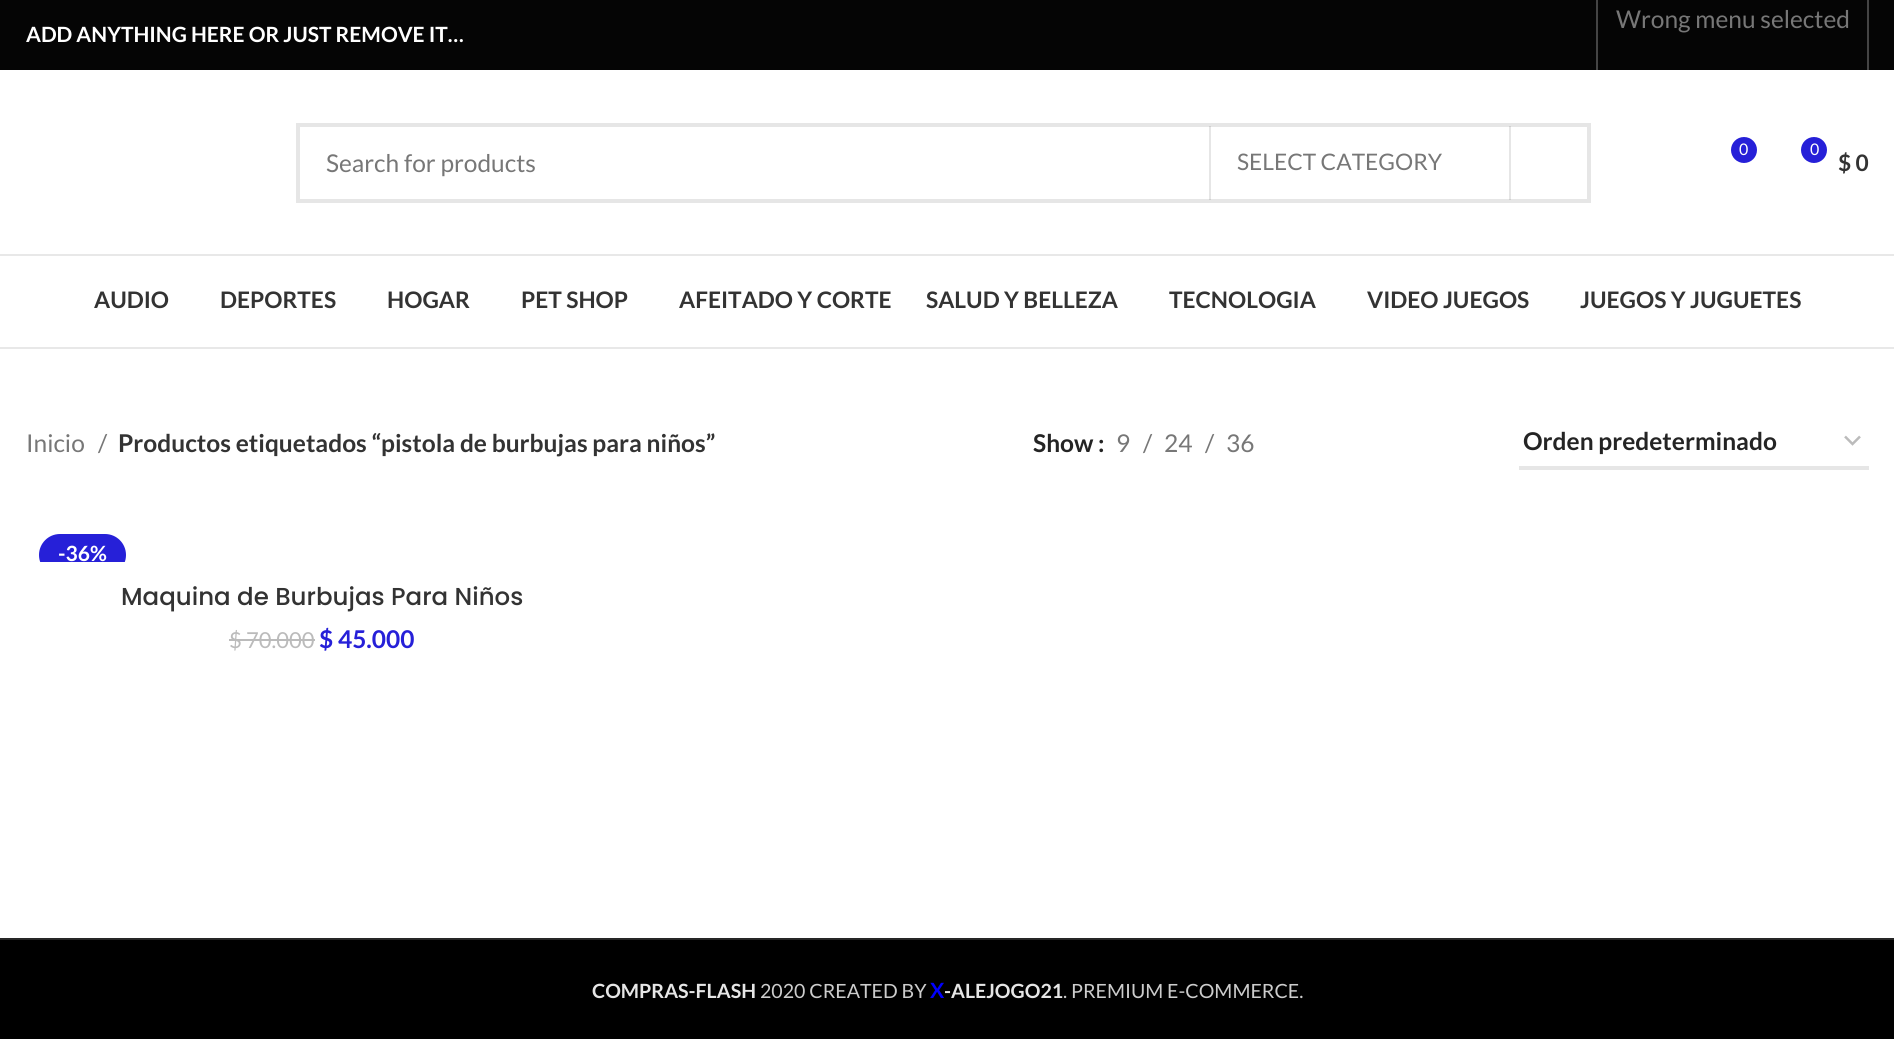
import math
import cairo

surface = cairo.ImageSurface(cairo.FORMAT_RGB24, 1894, 1039)
ctx = cairo.Context(surface)
options = cairo.FontOptions()
options.set_hint_metrics(cairo.HINT_METRICS_OFF)
options.set_hint_style(cairo.HINT_STYLE_NONE)
ctx.set_font_options(options)
ctx.set_miter_limit(4)


def round_rect(x, y, w, h, r):
    ctx.new_sub_path()
    for i, (u, v) in enumerate([(x + w - r, y + h - r), (x + r, y + h - r), (x + r, y + r), (x + w - r, y + r)]):
        ctx.arc(u, v, r, i * math.pi / 2, (i + 1) * math.pi / 2)
    ctx.close_path()


ctx.set_source_rgb(1, 1, 1)
ctx.paint()
ctx.set_source_rgb(0.02, 0.02, 0.02)
ctx.rectangle(0, 0, 1894, 70)
ctx.fill()
ctx.select_font_face("Lato", cairo.FONT_SLANT_NORMAL, cairo.FONT_WEIGHT_BOLD)
ctx.set_font_size(21)
ctx.set_source_rgb(1, 1, 1)
ctx.move_to(26, 42)
ctx.show_text("ADD ANYTHING HERE OR JUST REMOVE IT…")
ctx.set_source_rgb(0.267, 0.267, 0.267)
ctx.rectangle(1596, 0, 2, 70)
ctx.fill()
ctx.select_font_face("Lato")
ctx.set_font_size(24.5)
ctx.set_source_rgb(0.467, 0.467, 0.467)
ctx.move_to(1616, 28)
ctx.show_text("Wrong menu selected")
ctx.set_source_rgb(0.267, 0.267, 0.267)
ctx.rectangle(1867, 0, 2, 70)
ctx.fill()
ctx.set_source_rgb(0.91, 0.91, 0.91)
ctx.rectangle(0, 254, 1894, 2)
ctx.fill()
ctx.rectangle(298, 125, 1291, 76)
ctx.set_source_rgb(0.902, 0.902, 0.902)
ctx.set_line_width(4)
ctx.stroke()
ctx.set_source_rgb(0.467, 0.467, 0.467)
ctx.move_to(326, 172)
ctx.show_text("Search for products")
ctx.set_source_rgba(0, 0, 0, 0.1)
ctx.rectangle(1509, 126, 2, 74)
ctx.fill()
ctx.rectangle(1209, 126, 2, 74)
ctx.fill()
ctx.set_font_size(22.75)
ctx.set_source_rgb(0.467, 0.467, 0.467)
ctx.move_to(1237, 170)
ctx.show_text("SELECT CATEGORY")
ctx.set_source_rgb(0.149, 0.125, 0.847)
ctx.new_path()
ctx.arc(1744, 150, 13, 0, 2 * math.pi)
ctx.fill()
ctx.set_font_size(16)
ctx.set_source_rgb(1, 1, 1)
ctx.move_to(1739, 155)
ctx.show_text("0")
ctx.set_source_rgb(0.149, 0.125, 0.847)
ctx.new_path()
ctx.arc(1814, 150, 13, 0, 2 * math.pi)
ctx.fill()
ctx.set_source_rgb(1, 1, 1)
ctx.move_to(1810, 155)
ctx.show_text("0")
ctx.select_font_face("Lato", cairo.FONT_SLANT_NORMAL, cairo.FONT_WEIGHT_BOLD)
ctx.set_font_size(22.75)
ctx.set_source_rgb(0.2, 0.2, 0.2)
ctx.move_to(1838, 171)
ctx.show_text("$ 0")
ctx.set_source_rgb(0.91, 0.91, 0.91)
ctx.rectangle(0, 347, 1894, 2)
ctx.fill()
ctx.set_source_rgb(0.2, 0.2, 0.2)
ctx.move_to(94, 308)
ctx.show_text("AUDIO")
ctx.move_to(220, 308)
ctx.show_text("DEPORTES")
ctx.move_to(387, 308)
ctx.show_text("HOGAR")
ctx.move_to(521, 308)
ctx.show_text("PET SHOP")
ctx.move_to(679, 308)
ctx.show_text("AFEITADO Y CORTE")
ctx.move_to(926, 308)
ctx.show_text("SALUD Y BELLEZA")
ctx.move_to(1169, 308)
ctx.show_text("TECNOLOGIA")
ctx.move_to(1367, 308)
ctx.show_text("VIDEO JUEGOS")
ctx.move_to(1580, 308)
ctx.show_text("JUEGOS Y JUGUETES")
ctx.select_font_face("Lato")
ctx.set_font_size(24.5)
ctx.set_source_rgb(0.467, 0.467, 0.467)
ctx.move_to(26, 452)
ctx.show_text("Inicio")
ctx.move_to(98, 452)
ctx.show_text("/")
ctx.select_font_face("Lato", cairo.FONT_SLANT_NORMAL, cairo.FONT_WEIGHT_BOLD)
ctx.set_source_rgb(0.2, 0.2, 0.2)
ctx.move_to(118, 452)
ctx.show_text("Productos etiquetados “pistola de burbujas para niños”")
ctx.set_source_rgb(0.141, 0.141, 0.141)
ctx.move_to(1033, 452)
ctx.show_text("Show :")
ctx.select_font_face("Lato")
ctx.set_source_rgb(0.467, 0.467, 0.467)
ctx.move_to(1116, 452)
ctx.show_text("9")
ctx.move_to(1143, 452)
ctx.show_text("/")
ctx.move_to(1164, 452)
ctx.show_text("24")
ctx.move_to(1205, 452)
ctx.show_text("/")
ctx.move_to(1226, 452)
ctx.show_text("36")
ctx.new_path()
ctx.move_to(1845, 436.5)
ctx.line_to(1852.5, 444)
ctx.line_to(1860, 436.5)
ctx.set_source_rgb(0.733, 0.733, 0.733)
ctx.set_line_width(2.5)
ctx.stroke()
ctx.set_source_rgb(0.902, 0.902, 0.902)
ctx.rectangle(1519, 466, 350, 4)
ctx.fill()
ctx.select_font_face("Lato", cairo.FONT_SLANT_NORMAL, cairo.FONT_WEIGHT_BOLD)
ctx.set_source_rgb(0.141, 0.141, 0.141)
ctx.move_to(1523, 450)
ctx.show_text("Orden predeterminado")
ctx.save()
ctx.rectangle(26, 522, 592, 40)
ctx.clip()
ctx.set_source_rgb(0.149, 0.125, 0.847)
round_rect(39, 534, 87, 42, 21)
ctx.fill()
ctx.restore()
ctx.set_font_size(21)
ctx.set_source_rgb(1, 1, 1)
ctx.move_to(58, 561)
ctx.show_text("-36%")
ctx.select_font_face("Poppins Medium")
ctx.set_font_size(24.5)
ctx.set_source_rgb(0.2, 0.2, 0.2)
ctx.move_to(121, 605)
ctx.show_text("Maquina de Burbujas Para Niños")
ctx.select_font_face("Lato")
ctx.set_font_size(22)
ctx.set_source_rgb(0.733, 0.733, 0.733)
ctx.move_to(229, 648)
ctx.show_text("$ 70.000")
ctx.rectangle(229, 639, 86, 2)
ctx.fill()
ctx.select_font_face("Lato", cairo.FONT_SLANT_NORMAL, cairo.FONT_WEIGHT_BOLD)
ctx.set_font_size(24.5)
ctx.set_source_rgb(0.149, 0.125, 0.847)
ctx.move_to(319, 648)
ctx.show_text("$ 45.000")
ctx.set_source_rgb(0, 0, 0)
ctx.rectangle(0, 940, 1894, 99)
ctx.fill()
ctx.set_source_rgb(0.149, 0.149, 0.149)
ctx.rectangle(0, 938, 1894, 2)
ctx.fill()
ctx.set_font_size(19.6)
ctx.set_source_rgb(0.902, 0.902, 0.902)
ctx.move_to(592, 998)
ctx.show_text("COMPRAS-FLASH")
ctx.select_font_face("Lato")
ctx.set_source_rgb(0.8, 0.8, 0.8)
ctx.move_to(760, 998)
ctx.show_text("2020 CREATED BY")
ctx.select_font_face("Lato", cairo.FONT_SLANT_NORMAL, cairo.FONT_WEIGHT_BOLD)
ctx.set_font_size(21)
ctx.set_source_rgb(0, 0, 1)
ctx.move_to(930, 998)
ctx.show_text("X")
ctx.set_font_size(19.6)
ctx.set_source_rgb(0.902, 0.902, 0.902)
ctx.move_to(944, 998)
ctx.show_text("-ALEJOGO21")
ctx.select_font_face("Lato")
ctx.set_source_rgb(0.8, 0.8, 0.8)
ctx.move_to(1063, 998)
ctx.show_text(". PREMIUM E-COMMERCE.")
surface.write_to_png("page.png")
